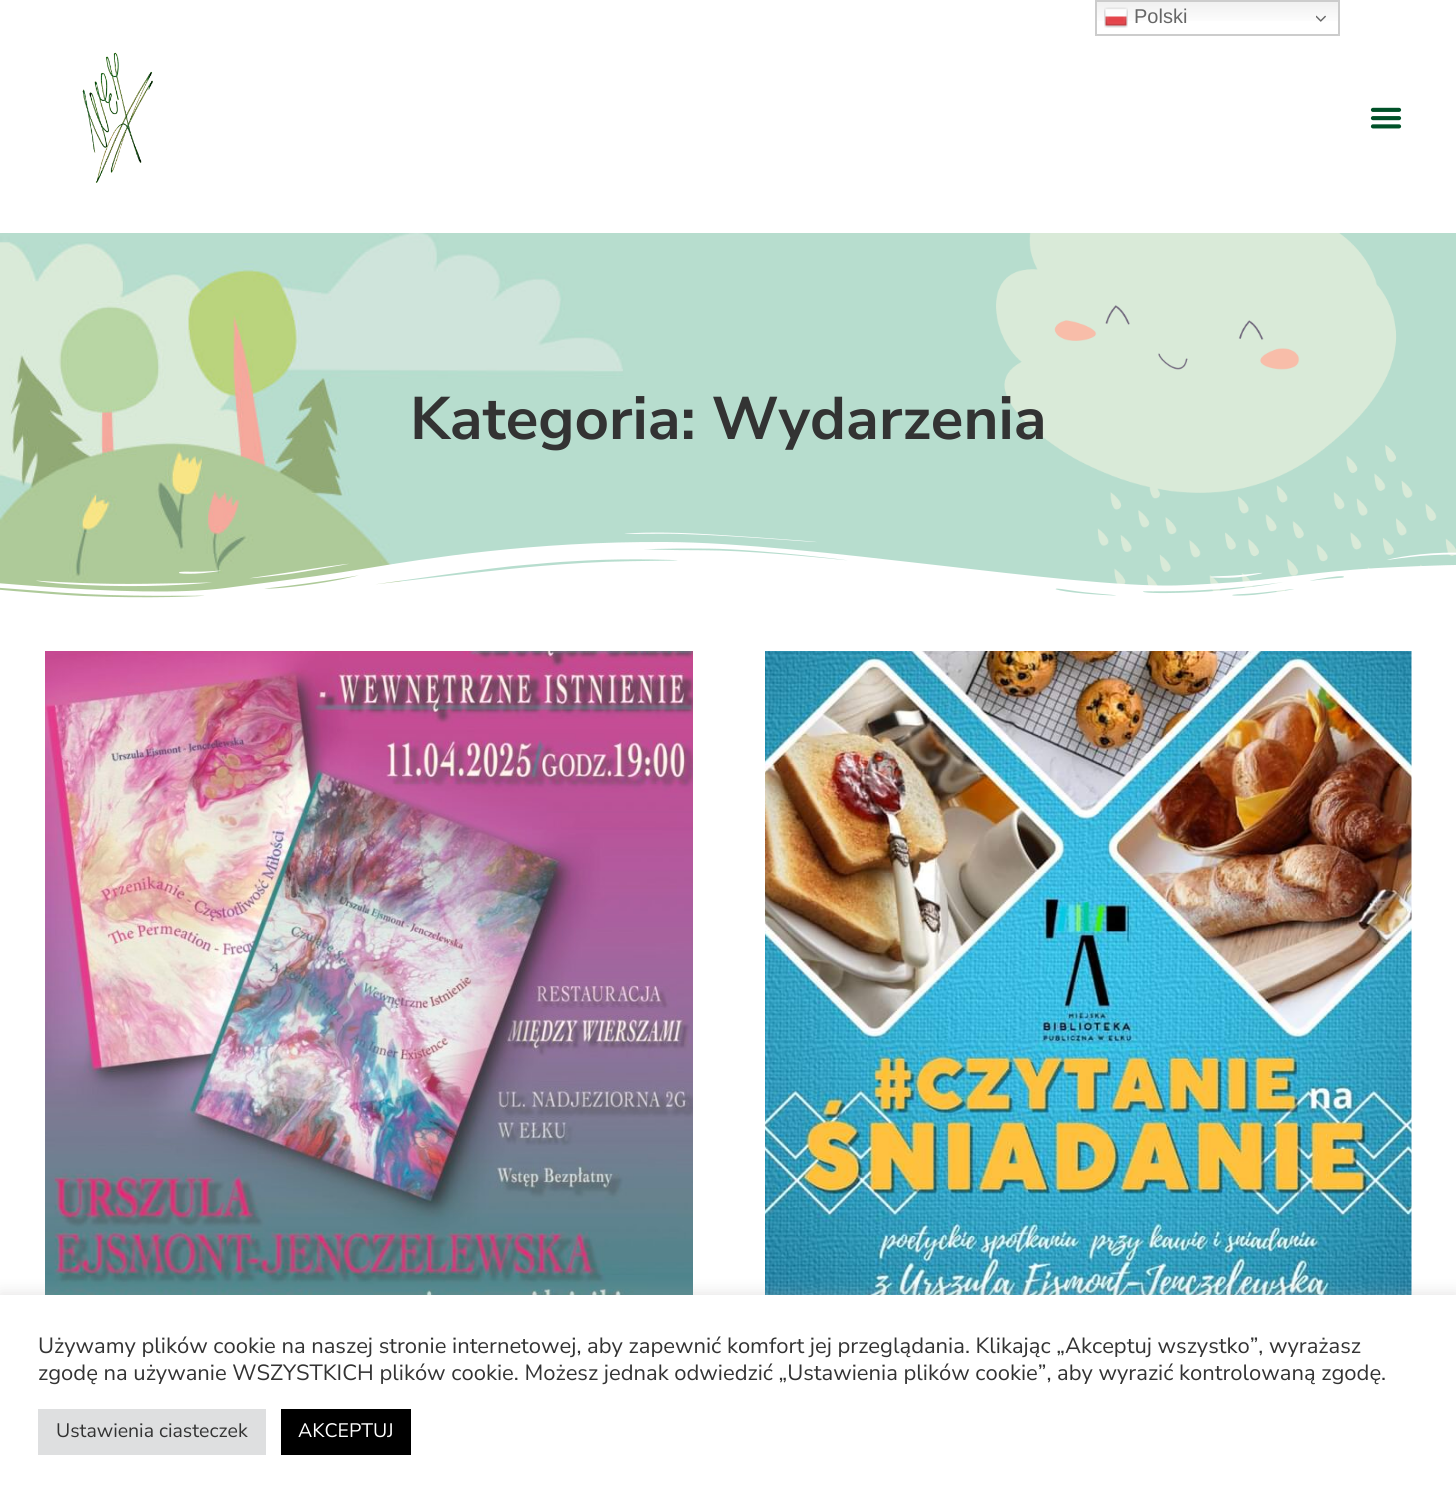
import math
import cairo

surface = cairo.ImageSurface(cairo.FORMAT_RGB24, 1456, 1500)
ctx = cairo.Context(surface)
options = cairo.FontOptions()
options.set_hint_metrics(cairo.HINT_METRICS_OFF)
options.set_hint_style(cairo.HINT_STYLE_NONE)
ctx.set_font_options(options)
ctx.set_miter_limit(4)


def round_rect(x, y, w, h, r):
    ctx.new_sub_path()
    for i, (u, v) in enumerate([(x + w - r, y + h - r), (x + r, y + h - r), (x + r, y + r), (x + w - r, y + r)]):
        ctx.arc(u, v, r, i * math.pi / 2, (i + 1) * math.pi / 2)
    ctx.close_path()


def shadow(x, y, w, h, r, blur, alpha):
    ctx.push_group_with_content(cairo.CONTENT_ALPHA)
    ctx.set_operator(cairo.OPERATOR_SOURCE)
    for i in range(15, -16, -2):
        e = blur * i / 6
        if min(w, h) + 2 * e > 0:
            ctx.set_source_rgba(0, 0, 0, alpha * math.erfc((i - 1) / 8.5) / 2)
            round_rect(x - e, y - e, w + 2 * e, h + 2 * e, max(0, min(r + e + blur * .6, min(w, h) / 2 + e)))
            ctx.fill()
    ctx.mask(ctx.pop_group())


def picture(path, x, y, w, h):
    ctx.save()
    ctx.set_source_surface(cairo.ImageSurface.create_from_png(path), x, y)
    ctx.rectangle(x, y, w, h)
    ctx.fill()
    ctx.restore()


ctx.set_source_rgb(1, 1, 1)
ctx.paint()
gradient = cairo.LinearGradient(1217, 0, 1217, 36)
gradient.add_color_stop_rgba(0, 0.937, 0.937, 0.937, 1)
gradient.add_color_stop_rgba(0.7, 1, 1, 1, 1)
ctx.set_source(gradient)
ctx.rectangle(1097, 2, 241, 19)
ctx.fill()
ctx.rectangle(1096, 1, 243, 34)
ctx.set_source_rgb(0.8, 0.8, 0.8)
ctx.stroke()
picture("img1.png", 1104, 7, 24, 21)
ctx.select_font_face("Liberation Sans")
ctx.set_font_size(20)
ctx.set_source_rgb(0.4, 0.4, 0.4)
ctx.move_to(1134, 23)
ctx.show_text("Polski")
picture("img2.png", 1316, 15, 10, 7)
picture("img3.png", 82, 52, 71, 131)
picture("img4.png", 1370, 107, 32, 22)
picture("img5.png", 0, 233, 1456, 365)
picture("img6.png", 996, 233, 460, 360)
ctx.select_font_face("Nunito Sans", cairo.FONT_SLANT_NORMAL, cairo.FONT_WEIGHT_BOLD)
ctx.set_font_size(60)
ctx.set_source_rgb(0.2, 0.2, 0.2)
ctx.move_to(410, 439)
ctx.show_text("Kategoria: Wydarzenia")
picture("img7.png", 0, 532, 1456, 74)
picture("img8.png", 45, 651, 648, 644)
picture("img9.png", 765, 651, 647, 644)
ctx.set_source_rgb(0.675, 0.671, 0.671)
shadow(0, 1293, 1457, 206, 0, 7.5, 0.3)
ctx.set_source_rgb(1, 1, 1)
ctx.rectangle(0, 1295, 1456, 205)
ctx.fill()
ctx.select_font_face("Nunito Sans")
ctx.set_font_size(22)
ctx.set_source_rgb(0.2, 0.2, 0.2)
ctx.move_to(38, 1353)
ctx.show_text("Używamy plików cookie na naszej stronie internetowej, aby zapewnić komfort jej przeglądania. Klikając „Akceptuj wszystko”, wyrażasz")
ctx.move_to(38, 1380)
ctx.show_text("zgodę na używanie WSZYSTKICH plików cookie. Możesz jednak odwiedzić „Ustawienia plików cookie”, aby wyrazić kontrolowaną zgodę.")
ctx.set_source_rgb(0.871, 0.875, 0.878)
ctx.rectangle(38, 1409, 228, 46)
ctx.fill()
ctx.set_font_size(19.5)
ctx.set_source_rgb(0.2, 0.2, 0.2)
ctx.move_to(56, 1437)
ctx.show_text("Ustawienia ciasteczek")
ctx.set_source_rgb(0, 0, 0)
ctx.rectangle(281, 1409, 130, 46)
ctx.fill()
ctx.set_source_rgb(1, 1, 1)
ctx.move_to(298, 1437)
ctx.show_text("AKCEPTUJ")
surface.write_to_png("page.png")
